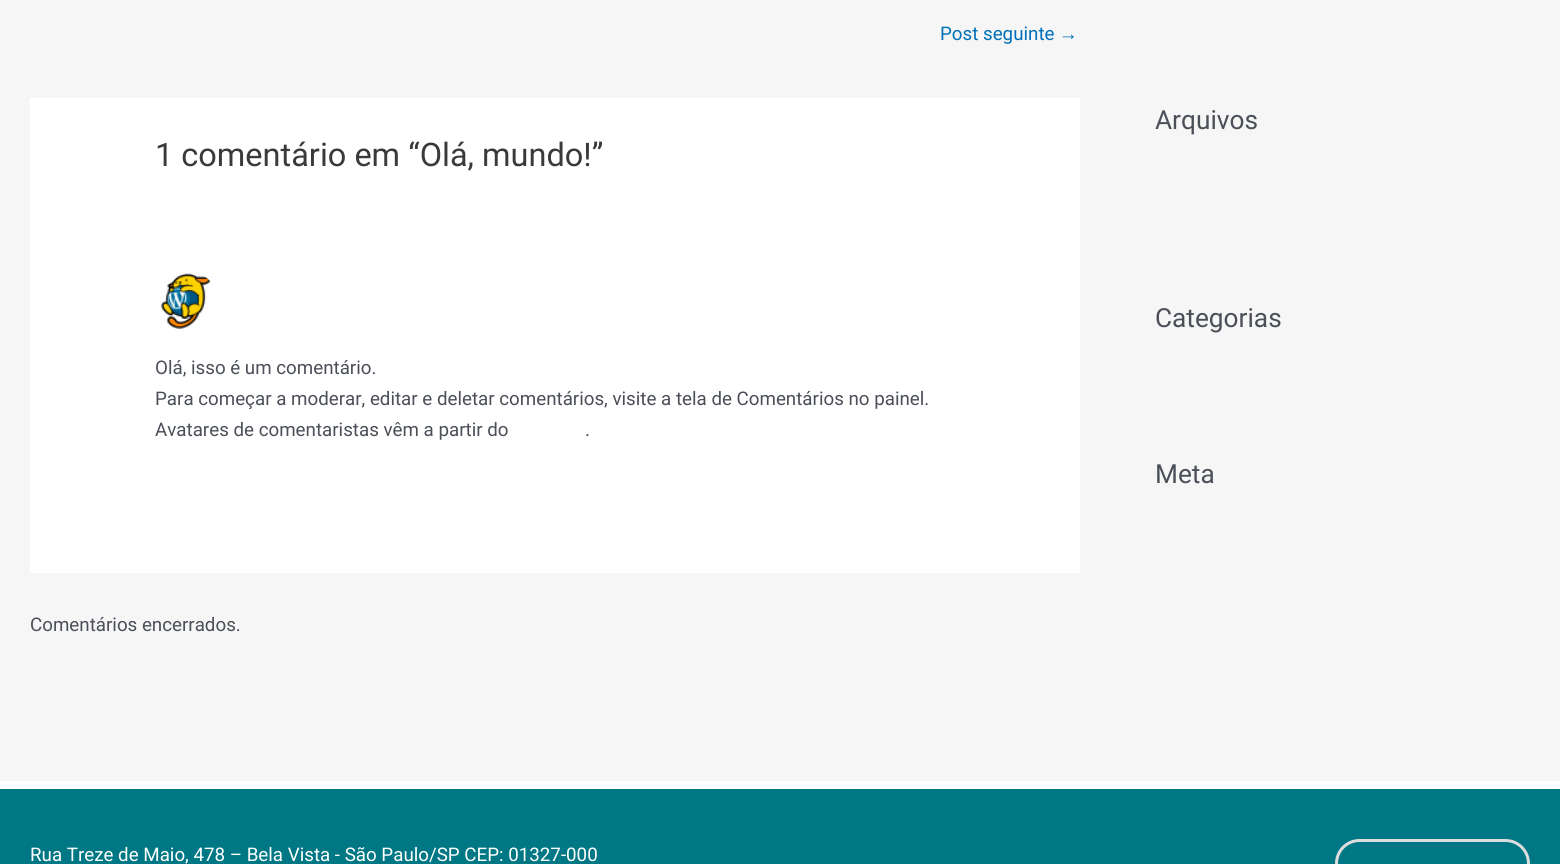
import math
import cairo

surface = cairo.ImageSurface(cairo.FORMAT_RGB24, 1560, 864)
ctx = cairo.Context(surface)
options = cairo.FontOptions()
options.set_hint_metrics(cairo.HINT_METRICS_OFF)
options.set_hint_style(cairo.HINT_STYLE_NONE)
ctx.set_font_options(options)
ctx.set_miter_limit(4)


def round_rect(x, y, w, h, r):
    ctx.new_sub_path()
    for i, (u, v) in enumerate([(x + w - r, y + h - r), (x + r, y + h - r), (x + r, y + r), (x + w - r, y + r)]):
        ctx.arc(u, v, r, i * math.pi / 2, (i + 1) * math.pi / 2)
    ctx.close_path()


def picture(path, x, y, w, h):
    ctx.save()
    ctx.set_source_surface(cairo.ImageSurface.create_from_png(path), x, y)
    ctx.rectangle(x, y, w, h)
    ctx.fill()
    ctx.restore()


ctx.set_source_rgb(0.961, 0.961, 0.961)
ctx.paint()
ctx.select_font_face("Roboto")
ctx.set_font_size(18.75)
ctx.set_source_rgb(0.004, 0.439, 0.725)
ctx.move_to(940, 40)
ctx.show_text("Post seguinte")
ctx.select_font_face("Liberation Sans")
ctx.move_to(1059, 40)
ctx.show_text("→")
ctx.set_source_rgb(1, 1, 1)
ctx.rectangle(30, 98, 1050, 475)
ctx.fill()
ctx.select_font_face("Roboto")
ctx.set_font_size(32.5)
ctx.set_source_rgb(0.227, 0.227, 0.227)
ctx.move_to(155, 166)
ctx.show_text("1 comentário em “Olá, mundo!”")
picture("img1.png", 161, 273, 50, 56)
ctx.set_font_size(18.75)
ctx.set_source_rgb(0.294, 0.31, 0.345)
ctx.move_to(155, 374)
ctx.show_text("Olá, isso é um comentário.")
ctx.move_to(155, 405)
ctx.show_text("Para começar a moderar, editar e deletar comentários, visite a tela de Comentários no painel.")
ctx.move_to(155, 436)
ctx.show_text("Avatares de comentaristas vêm a partir do")
ctx.move_to(585, 436)
ctx.show_text(".")
ctx.move_to(30, 631)
ctx.show_text("Comentários encerrados.")
ctx.set_font_size(26.25)
ctx.move_to(1155, 129)
ctx.show_text("Arquivos")
ctx.move_to(1155, 327)
ctx.show_text("Categorias")
ctx.move_to(1155, 483)
ctx.show_text("Meta")
ctx.set_source_rgb(1, 1, 1)
ctx.rectangle(0, 781, 1560, 8)
ctx.fill()
ctx.set_source_rgb(0, 0.467, 0.518)
ctx.rectangle(0, 789, 1560, 75)
ctx.fill()
ctx.set_font_size(18.75)
ctx.set_source_rgb(1, 1, 1)
ctx.move_to(30, 861)
ctx.show_text("Rua Treze de Maio, 478 – Bela Vista - São Paulo/SP CEP: 01327-000")
round_rect(1336.5, 840.5, 192, 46, 23)
ctx.set_source_rgb(0.867, 0.867, 0.867)
ctx.set_line_width(3)
ctx.stroke()
surface.write_to_png("page.png")
